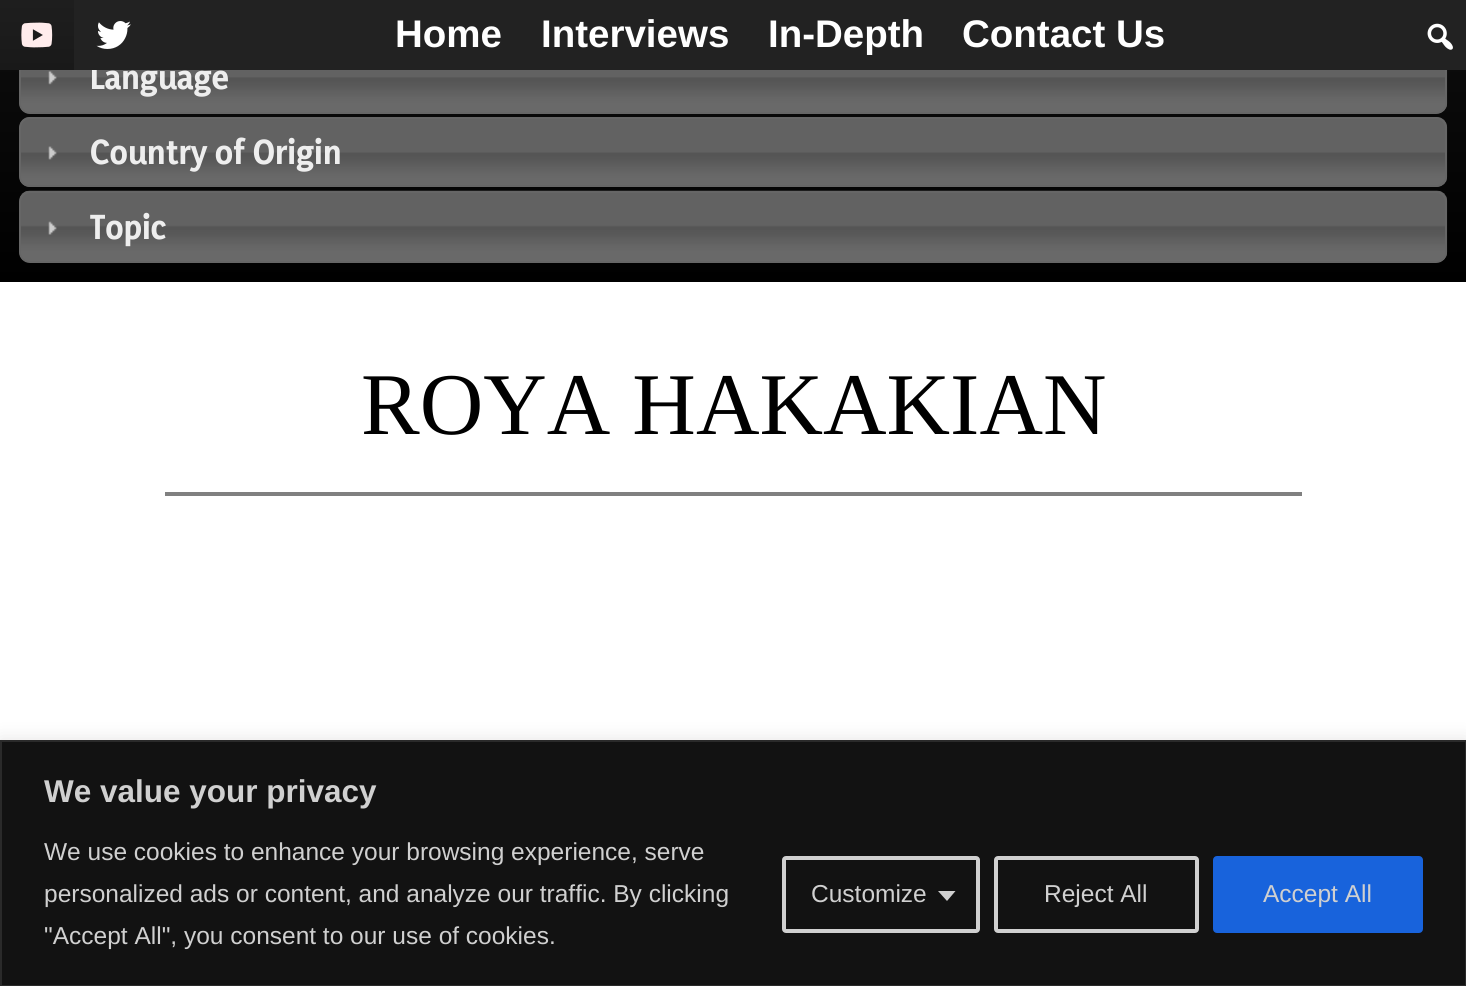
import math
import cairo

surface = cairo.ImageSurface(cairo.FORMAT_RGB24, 1466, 986)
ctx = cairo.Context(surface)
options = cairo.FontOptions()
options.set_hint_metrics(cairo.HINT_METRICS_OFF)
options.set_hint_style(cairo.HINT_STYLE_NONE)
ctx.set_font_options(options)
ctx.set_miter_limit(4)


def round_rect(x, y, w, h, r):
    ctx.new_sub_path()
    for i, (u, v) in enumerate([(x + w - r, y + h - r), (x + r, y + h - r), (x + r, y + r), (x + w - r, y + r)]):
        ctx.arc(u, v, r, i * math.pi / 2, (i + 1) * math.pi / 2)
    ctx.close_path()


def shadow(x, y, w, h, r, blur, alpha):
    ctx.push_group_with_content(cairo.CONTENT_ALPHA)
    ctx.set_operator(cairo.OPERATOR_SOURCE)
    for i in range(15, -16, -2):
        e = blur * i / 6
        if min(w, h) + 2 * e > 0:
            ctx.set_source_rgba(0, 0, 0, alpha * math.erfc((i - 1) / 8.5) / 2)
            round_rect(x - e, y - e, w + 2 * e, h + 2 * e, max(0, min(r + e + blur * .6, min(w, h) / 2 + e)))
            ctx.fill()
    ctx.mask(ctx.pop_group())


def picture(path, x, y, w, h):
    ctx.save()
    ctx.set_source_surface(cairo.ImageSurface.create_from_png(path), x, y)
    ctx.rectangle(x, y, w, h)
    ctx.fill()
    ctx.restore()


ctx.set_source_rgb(1, 1, 1)
ctx.paint()
gradient = cairo.LinearGradient(733, -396, 733, 282)
gradient.add_color_stop_rgba(0, 0.133, 0.133, 0.133, 1)
gradient.add_color_stop_rgba(1, 0, 0, 0, 1)
ctx.set_source(gradient)
ctx.rectangle(0, 70, 1466, 212)
ctx.fill()
picture("img4.png", 19, 70, 1429, 44)
round_rect(20, 43, 1426, 70, 10)
ctx.set_source_rgb(0.4, 0.4, 0.4)
ctx.stroke()
ctx.select_font_face("Yaldevi", cairo.FONT_SLANT_NORMAL, cairo.FONT_WEIGHT_BOLD)
ctx.set_font_size(31.5)
ctx.set_source_rgb(0.933, 0.933, 0.933)
ctx.move_to(90, 89)
ctx.show_text("Language")
ctx.set_source_rgb(0.133, 0.133, 0.133)
ctx.rectangle(74, 0, 1392, 70)
ctx.fill()
gradient = cairo.LinearGradient(37, 0, 37, 70)
gradient.add_color_stop_rgba(0, 0.118, 0.118, 0.118, 1)
gradient.add_color_stop_rgba(1, 0.098, 0.098, 0.098, 1)
ctx.set_source(gradient)
ctx.rectangle(0, 0, 74, 70)
ctx.fill()
picture("img1.png", 21, 22, 32, 26)
picture("img2.png", 96, 21, 35, 28)
ctx.select_font_face("Liberation Sans", cairo.FONT_SLANT_NORMAL, cairo.FONT_WEIGHT_BOLD)
ctx.set_font_size(38.5)
ctx.set_source_rgb(1, 1, 1)
ctx.move_to(395, 47)
ctx.show_text("Home")
ctx.move_to(541, 47)
ctx.show_text("Interviews")
ctx.move_to(768, 47)
ctx.show_text("In-Depth")
ctx.move_to(962, 47)
ctx.show_text("Contact Us")
picture("img3.png", 1427, 23, 26, 27)
picture("img5.png", 48, 71, 9, 14)
picture("img6.png", 19, 117, 1429, 70)
round_rect(20, 118, 1426, 68, 10)
ctx.set_source_rgb(0.4, 0.4, 0.4)
ctx.stroke()
picture("img7.png", 48, 146, 9, 14)
ctx.select_font_face("Yaldevi", cairo.FONT_SLANT_NORMAL, cairo.FONT_WEIGHT_BOLD)
ctx.set_font_size(31.5)
ctx.set_source_rgb(0.933, 0.933, 0.933)
ctx.move_to(90, 164)
ctx.show_text("Country of Origin")
picture("img8.png", 19, 190, 1429, 72)
round_rect(20, 192, 1426, 70, 10)
ctx.set_source_rgb(0.4, 0.4, 0.4)
ctx.stroke()
picture("img9.png", 48, 221, 9, 14)
ctx.set_source_rgb(0.933, 0.933, 0.933)
ctx.move_to(90, 239)
ctx.show_text("Topic")
ctx.select_font_face("Liberation Serif")
ctx.set_font_size(88)
ctx.set_source_rgb(0, 0, 0)
ctx.move_to(361, 434)
ctx.show_text("ROYA HAKAKIAN")
ctx.set_source_rgb(0.502, 0.502, 0.502)
ctx.rectangle(165, 492, 1137, 4)
ctx.fill()
ctx.set_source_rgb(0.675, 0.671, 0.671)
shadow(0, 739, 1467, 246, 0, 9, 0.3)
ctx.set_source_rgb(0.071, 0.071, 0.071)
ctx.rectangle(1, 741, 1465, 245)
ctx.fill_preserve()
ctx.set_source_rgb(0.165, 0.165, 0.165)
ctx.stroke()
ctx.select_font_face("Liberation Sans", cairo.FONT_SLANT_NORMAL, cairo.FONT_WEIGHT_BOLD)
ctx.set_font_size(31.5)
ctx.set_source_rgb(0.816, 0.816, 0.816)
ctx.move_to(44, 802)
ctx.show_text("We value your privacy")
ctx.select_font_face("Liberation Sans")
ctx.set_font_size(24.5)
ctx.move_to(44, 860)
ctx.show_text("We use cookies to enhance your browsing experience, serve")
ctx.move_to(44, 902)
ctx.show_text("personalized ads or content, and analyze our traffic. By clicking")
ctx.move_to(44, 944)
ctx.show_text("\"Accept All\", you consent to our use of cookies.")
round_rect(784, 858, 194, 73, 2)
ctx.set_line_width(4)
ctx.stroke()
ctx.move_to(811, 902)
ctx.show_text("Customize")
ctx.new_path()
ctx.move_to(938, 891)
ctx.line_to(955.5, 891)
ctx.line_to(947, 901)
ctx.close_path()
ctx.fill()
round_rect(996, 858, 201, 73, 2)
ctx.stroke()
ctx.move_to(1044, 902)
ctx.show_text("Reject All")
ctx.set_source_rgb(0.094, 0.388, 0.863)
round_rect(1215, 858, 206, 73, 2)
ctx.fill_preserve()
ctx.stroke()
ctx.set_source_rgb(0.816, 0.816, 0.816)
ctx.move_to(1263, 902)
ctx.show_text("Accept All")
surface.write_to_png("page.png")
